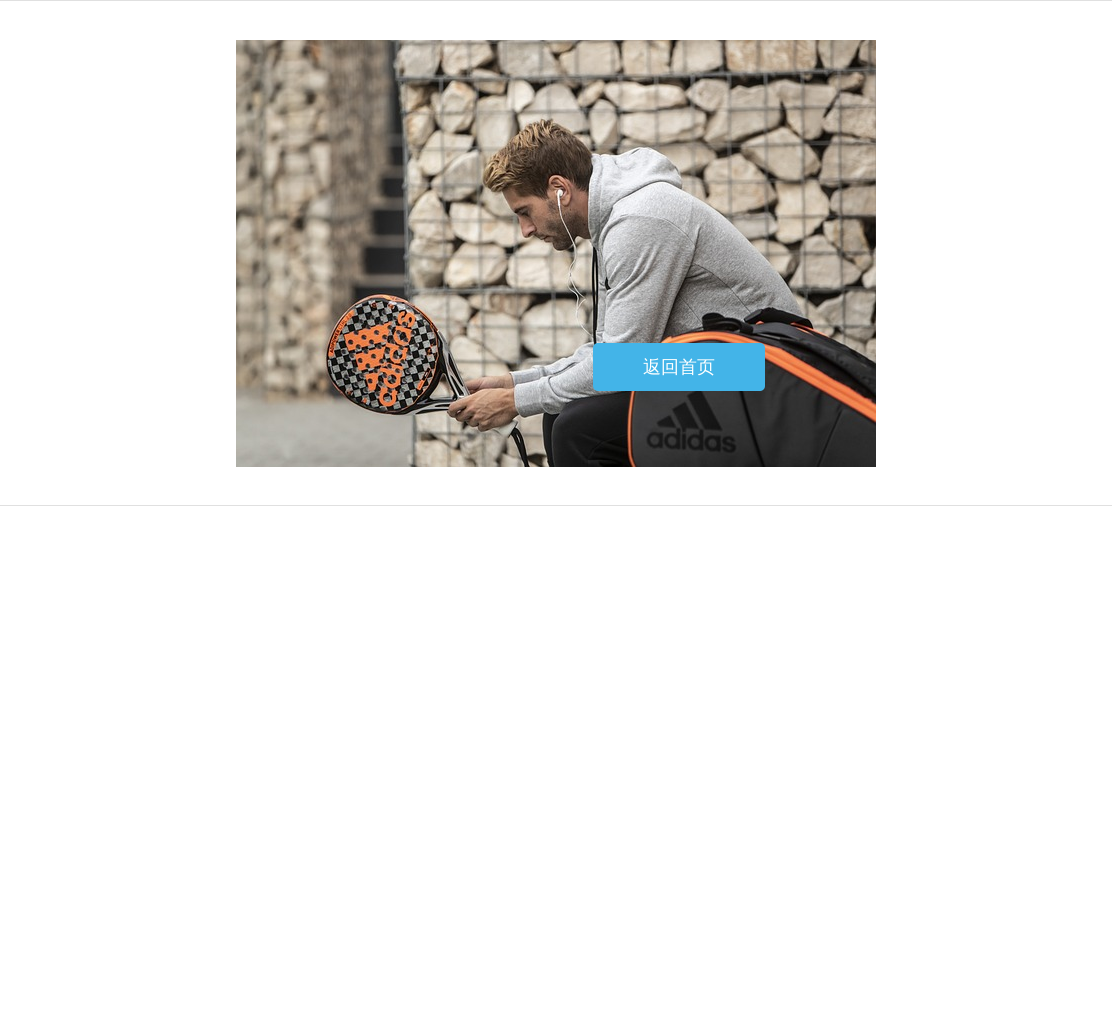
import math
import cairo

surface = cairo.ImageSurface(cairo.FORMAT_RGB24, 1112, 1014)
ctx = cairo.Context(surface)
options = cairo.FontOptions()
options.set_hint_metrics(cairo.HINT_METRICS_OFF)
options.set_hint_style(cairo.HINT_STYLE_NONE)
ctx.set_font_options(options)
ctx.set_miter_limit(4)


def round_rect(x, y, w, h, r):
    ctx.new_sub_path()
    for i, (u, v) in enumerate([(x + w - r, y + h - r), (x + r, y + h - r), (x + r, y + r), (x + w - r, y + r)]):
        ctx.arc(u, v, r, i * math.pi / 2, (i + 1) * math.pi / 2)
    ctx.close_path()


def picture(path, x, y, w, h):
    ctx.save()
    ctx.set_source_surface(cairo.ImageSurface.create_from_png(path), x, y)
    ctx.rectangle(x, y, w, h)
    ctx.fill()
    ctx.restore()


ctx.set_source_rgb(1, 1, 1)
ctx.paint()
ctx.set_source_rgb(0.878, 0.878, 0.878)
ctx.rectangle(0, 0, 1112, 1)
ctx.fill()
ctx.rectangle(0, 505, 1112, 1)
ctx.fill()
picture("img1.png", 236, 40, 640, 427)
ctx.set_source_rgb(0.263, 0.706, 0.91)
round_rect(593, 343, 172, 48, 5)
ctx.fill()
ctx.select_font_face("WenQuanYi Zen Hei Medium")
ctx.set_font_size(18)
ctx.set_source_rgb(1, 1, 1)
ctx.move_to(643, 373)
ctx.show_text("返回首页")
surface.write_to_png("page.png")
